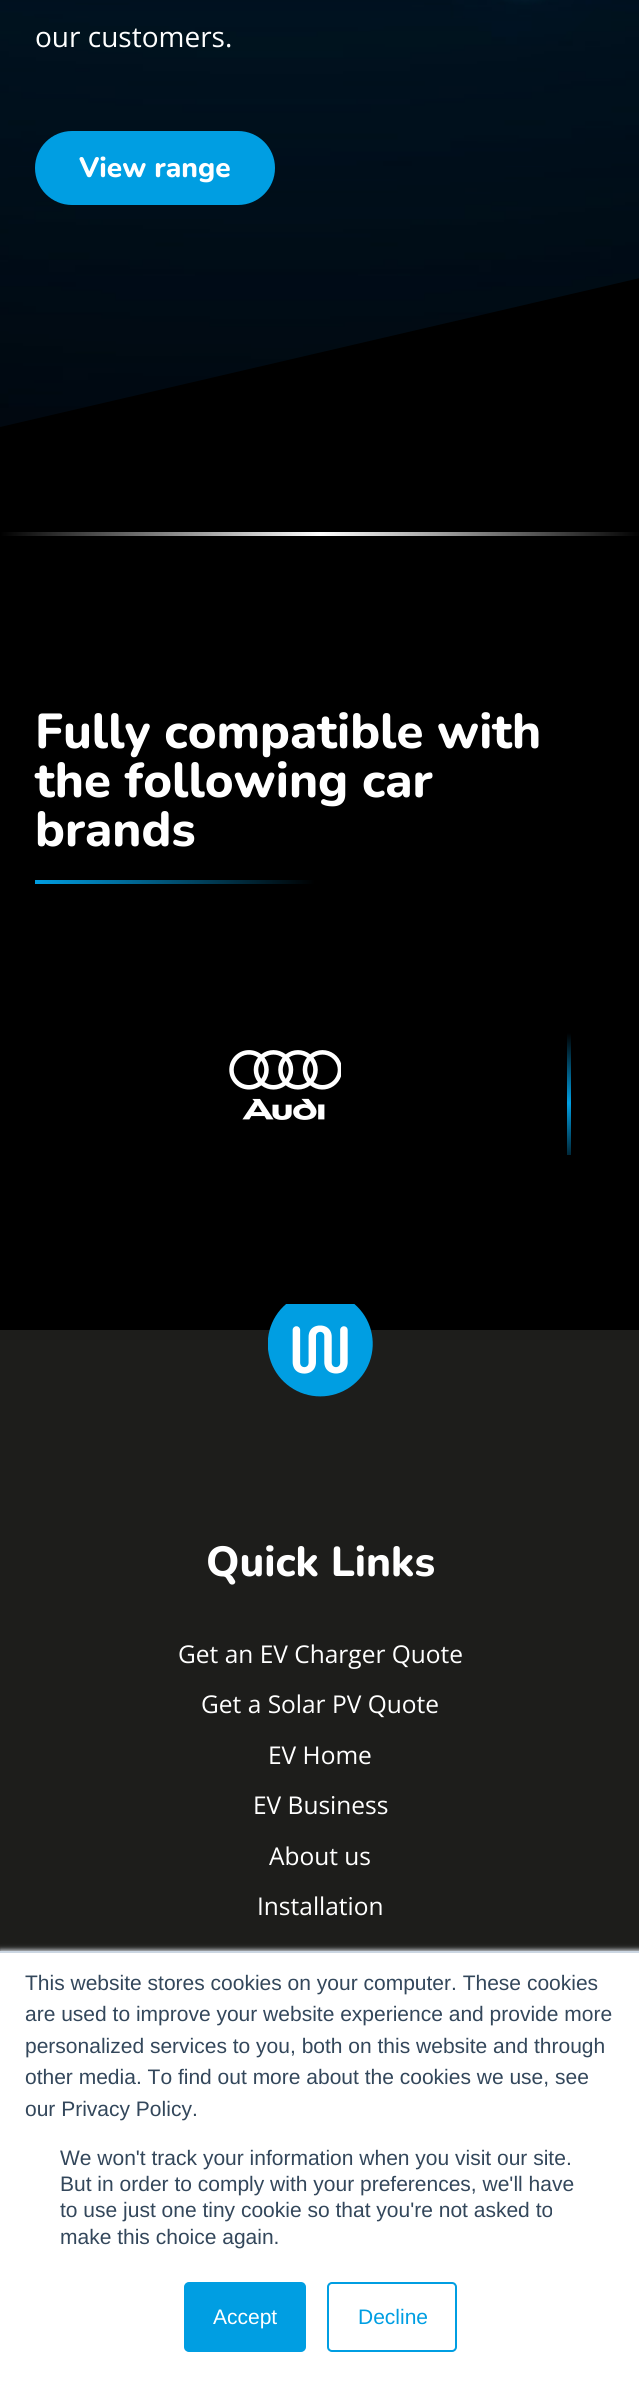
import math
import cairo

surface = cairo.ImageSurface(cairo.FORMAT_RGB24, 639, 2387)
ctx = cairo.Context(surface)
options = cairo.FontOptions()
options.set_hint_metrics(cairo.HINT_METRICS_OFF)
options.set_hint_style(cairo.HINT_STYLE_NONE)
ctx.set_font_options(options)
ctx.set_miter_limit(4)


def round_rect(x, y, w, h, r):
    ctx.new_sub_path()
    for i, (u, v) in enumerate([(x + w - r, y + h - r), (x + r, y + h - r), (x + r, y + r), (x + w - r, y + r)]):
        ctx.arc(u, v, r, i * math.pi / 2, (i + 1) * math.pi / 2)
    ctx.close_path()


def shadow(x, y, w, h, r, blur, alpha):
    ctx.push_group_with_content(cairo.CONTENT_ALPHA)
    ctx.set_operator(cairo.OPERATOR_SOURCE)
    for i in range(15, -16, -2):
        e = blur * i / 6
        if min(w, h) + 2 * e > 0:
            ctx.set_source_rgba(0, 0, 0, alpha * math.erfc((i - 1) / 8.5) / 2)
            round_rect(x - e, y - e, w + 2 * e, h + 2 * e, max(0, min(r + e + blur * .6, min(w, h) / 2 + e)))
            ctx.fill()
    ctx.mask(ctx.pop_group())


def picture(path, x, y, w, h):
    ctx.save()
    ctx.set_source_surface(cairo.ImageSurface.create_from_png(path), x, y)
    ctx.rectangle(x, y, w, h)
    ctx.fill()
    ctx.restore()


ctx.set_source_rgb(0, 0, 0)
ctx.paint()
picture("img1.png", 0, 0, 639, 427)
ctx.select_font_face("Open Sans")
ctx.set_font_size(28)
ctx.set_source_rgb(1, 1, 1)
ctx.move_to(35, 47)
ctx.show_text("our customers.")
ctx.set_source_rgb(0, 0.62, 0.886)
round_rect(35, 131, 240, 74, 37)
ctx.fill()
ctx.select_font_face("Nunito ExtraBold")
ctx.set_source_rgb(1, 1, 1)
ctx.move_to(79, 177)
ctx.show_text("View range")
ctx.set_source_rgb(0, 0, 0)
ctx.new_path()
ctx.move_to(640, 427)
ctx.line_to(0, 427)
ctx.line_to(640, 278)
ctx.close_path()
ctx.fill()
gradient = cairo.LinearGradient(0, 534, 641, 534)
gradient.add_color_stop_rgba(0, 0, 0, 0, 1)
gradient.add_color_stop_rgba(0.5, 1, 1, 1, 1)
gradient.add_color_stop_rgba(1, 0, 0, 0, 1)
ctx.set_source(gradient)
ctx.rectangle(0, 532, 639, 4)
ctx.fill()
ctx.set_font_size(49)
ctx.set_source_rgb(1, 1, 1)
ctx.move_to(35, 748)
ctx.show_text("Fully compatible with")
ctx.move_to(35, 797)
ctx.show_text("the following car")
ctx.move_to(35, 846)
ctx.show_text("brands")
gradient = cairo.LinearGradient(35, 882, 315, 882)
gradient.add_color_stop_rgba(0, 0, 0.62, 0.886, 1)
gradient.add_color_stop_rgba(1, 0, 0, 0, 1)
ctx.set_source(gradient)
ctx.rectangle(35, 880, 280, 4)
ctx.fill()
picture("img2.png", 229, 1050, 112, 70)
gradient = cairo.LinearGradient(569, 1033, 569, 1173)
gradient.add_color_stop_rgba(0, 0, 0, 0, 1)
gradient.add_color_stop_rgba(0.5, 0, 0.62, 0.886, 1)
gradient.add_color_stop_rgba(1, 0, 0, 0, 1)
ctx.set_source(gradient)
ctx.rectangle(567, 1033, 4, 122)
ctx.fill()
ctx.set_source_rgb(0.114, 0.114, 0.106)
ctx.rectangle(0, 1330, 639, 621)
ctx.fill()
picture("img3.png", 268, 1304, 105, 93)
ctx.set_font_size(42)
ctx.set_source_rgb(1, 1, 1)
ctx.move_to(206, 1576)
ctx.show_text("Quick Links")
ctx.select_font_face("Open Sans")
ctx.set_font_size(24.5)
ctx.move_to(178, 1663)
ctx.show_text("Get an EV Charger Quote")
ctx.move_to(201, 1713)
ctx.show_text("Get a Solar PV Quote")
ctx.move_to(268, 1764)
ctx.show_text("EV Home")
ctx.move_to(253, 1814)
ctx.show_text("EV Business")
ctx.move_to(269, 1865)
ctx.show_text("About us")
ctx.move_to(257, 1915)
ctx.show_text("Installation")
ctx.set_source_rgb(0.918, 0.941, 0.965)
shadow(0, 1950, 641, 435, 0, 2.5, 1)
ctx.set_source_rgb(1, 1, 1)
ctx.rectangle(0, 1953, 639, 434)
ctx.fill()
ctx.set_source_rgb(0.796, 0.839, 0.886)
ctx.rectangle(0, 1951, 639, 2)
ctx.fill()
ctx.select_font_face("Liberation Sans")
ctx.set_font_size(21)
ctx.set_source_rgb(0.2, 0.278, 0.357)
ctx.move_to(25, 1990)
ctx.show_text("This website stores cookies on your computer. These cookies")
ctx.move_to(25, 2021)
ctx.show_text("are used to improve your website experience and provide more")
ctx.move_to(25, 2053)
ctx.show_text("personalized services to you, both on this website and through")
ctx.move_to(25, 2084)
ctx.show_text("other media. To find out more about the cookies we use, see")
ctx.move_to(25, 2116)
ctx.show_text("our Privacy Policy.")
ctx.move_to(60, 2165)
ctx.show_text("We won't track your information when you visit our site.")
ctx.move_to(60, 2191)
ctx.show_text("But in order to comply with your preferences, we'll have")
ctx.move_to(60, 2217)
ctx.show_text("to use just one tiny cookie so that you're not asked to")
ctx.move_to(60, 2244)
ctx.show_text("make this choice again.")
ctx.set_source_rgb(0, 0.62, 0.886)
round_rect(185, 2283, 120, 68, 4)
ctx.fill_preserve()
ctx.stroke()
ctx.set_source_rgb(1, 1, 1)
ctx.move_to(213, 2324)
ctx.show_text("Accept")
round_rect(328, 2283, 128, 68, 4)
ctx.set_source_rgb(0, 0.62, 0.886)
ctx.stroke()
ctx.move_to(358, 2324)
ctx.show_text("Decline")
surface.write_to_png("page.png")
